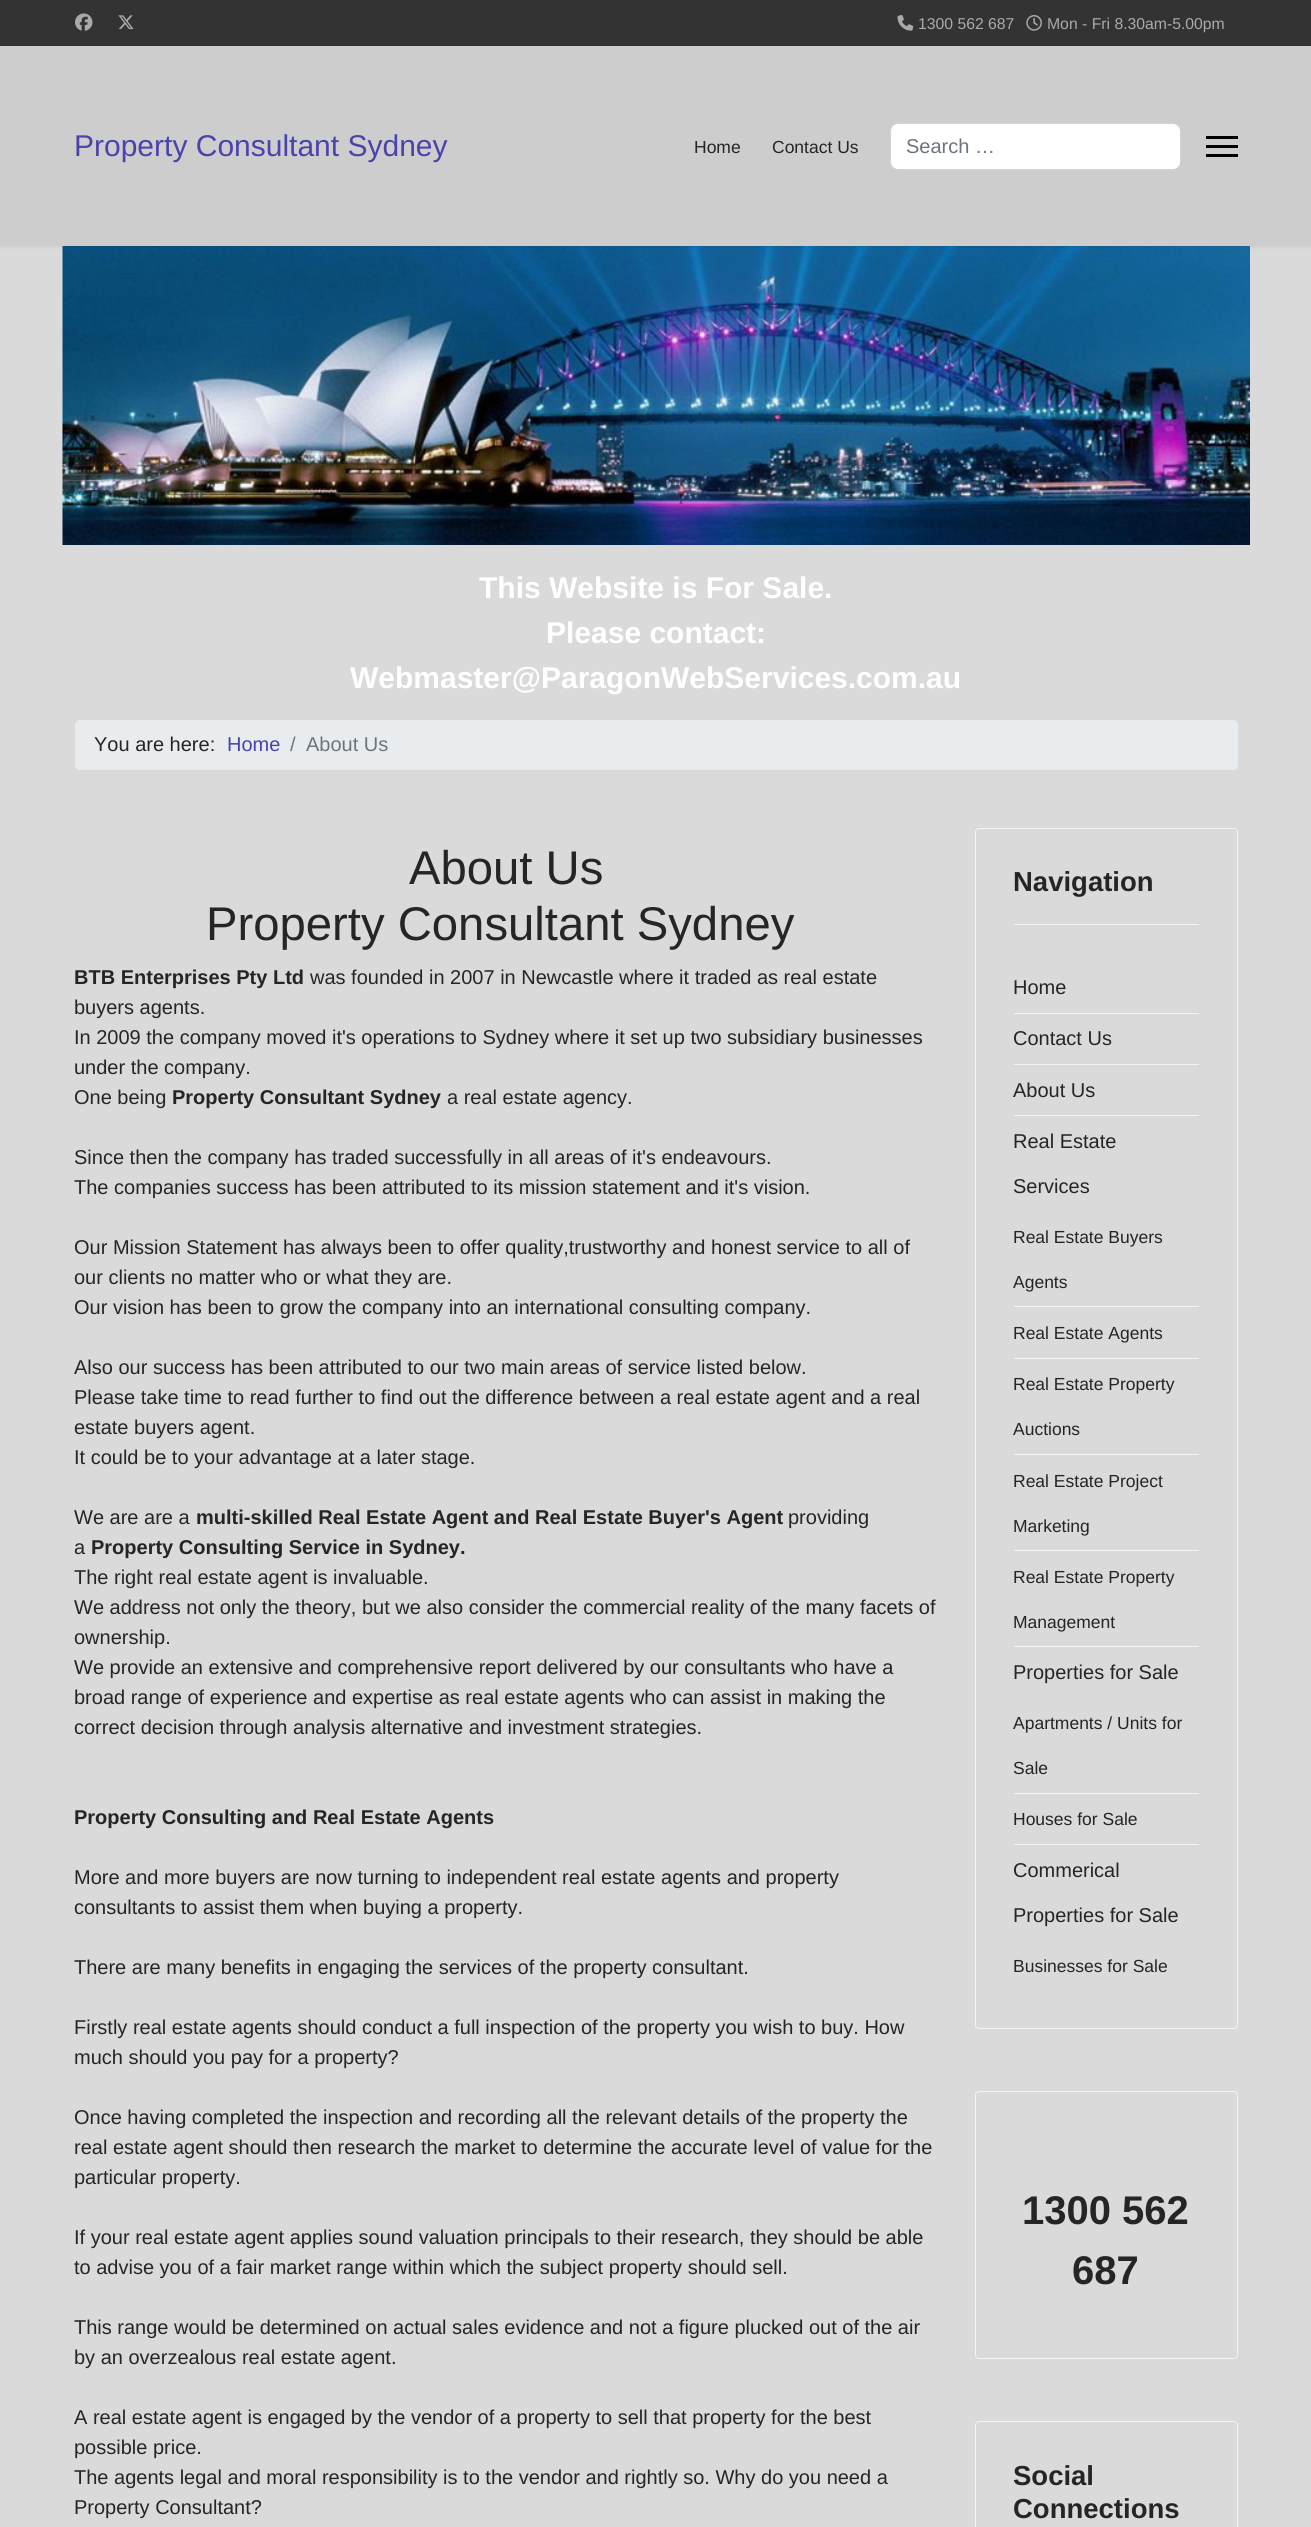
import math
import cairo

surface = cairo.ImageSurface(cairo.FORMAT_RGB24, 1311, 2527)
ctx = cairo.Context(surface)
options = cairo.FontOptions()
options.set_hint_metrics(cairo.HINT_METRICS_OFF)
options.set_hint_style(cairo.HINT_STYLE_NONE)
ctx.set_font_options(options)
ctx.set_miter_limit(4)


def round_rect(x, y, w, h, r):
    ctx.new_sub_path()
    for i, (u, v) in enumerate([(x + w - r, y + h - r), (x + r, y + h - r), (x + r, y + r), (x + w - r, y + r)]):
        ctx.arc(u, v, r, i * math.pi / 2, (i + 1) * math.pi / 2)
    ctx.close_path()


def shadow(x, y, w, h, r, blur, alpha):
    ctx.push_group_with_content(cairo.CONTENT_ALPHA)
    ctx.set_operator(cairo.OPERATOR_SOURCE)
    for i in range(15, -16, -2):
        e = blur * i / 6
        if min(w, h) + 2 * e > 0:
            ctx.set_source_rgba(0, 0, 0, alpha * math.erfc((i - 1) / 8.5) / 2)
            round_rect(x - e, y - e, w + 2 * e, h + 2 * e, max(0, min(r + e + blur * .6, min(w, h) / 2 + e)))
            ctx.fill()
    ctx.mask(ctx.pop_group())


def picture(path, x, y, w, h):
    ctx.save()
    ctx.set_source_surface(cairo.ImageSurface.create_from_png(path), x, y)
    ctx.rectangle(x, y, w, h)
    ctx.fill()
    ctx.restore()


ctx.set_source_rgb(0.855, 0.855, 0.855)
ctx.paint()
ctx.set_source_rgb(0.2, 0.2, 0.2)
ctx.rectangle(0, 0, 1311, 46)
ctx.fill()
picture("img1.png", 75, 13, 18, 18)
picture("img2.png", 118, 15, 16, 15)
picture("img3.png", 897, 15, 17, 16)
ctx.select_font_face("Liberation Sans")
ctx.set_font_size(15.75)
ctx.set_source_rgb(0.667, 0.667, 0.667)
ctx.move_to(918, 29)
ctx.show_text("1300 562 687")
picture("img4.png", 1026, 15, 16, 16)
ctx.move_to(1047, 29)
ctx.show_text("Mon - Fri 8.30am-5.00pm")
picture("img5.png", 62, 246, 1188, 299)
ctx.set_source_rgb(0, 0, 0)
shadow(0, 46, 1311, 200, 0, 2.5, 0.1)
ctx.set_source_rgb(0.804, 0.804, 0.804)
ctx.rectangle(0, 46, 1311, 200)
ctx.fill()
ctx.set_font_size(30)
ctx.set_source_rgb(0.286, 0.263, 0.675)
ctx.move_to(74, 156)
ctx.show_text("Property Consultant Sydney")
ctx.set_font_size(17.5)
ctx.set_source_rgb(0.145, 0.145, 0.145)
ctx.move_to(694, 153)
ctx.show_text("Home")
ctx.move_to(772, 153)
ctx.show_text("Contact Us")
ctx.set_source_rgb(1, 1, 1)
round_rect(891, 124, 289, 45, 6)
ctx.fill()
round_rect(890.5, 123.5, 290, 46, 7.5)
ctx.set_source_rgb(0.808, 0.831, 0.855)
ctx.set_line_width(1)
ctx.stroke()
ctx.set_font_size(20)
ctx.set_source_rgb(0.424, 0.459, 0.49)
ctx.move_to(906, 153)
ctx.show_text("Search …")
ctx.set_source_rgb(0, 0, 0)
ctx.rectangle(1206, 136, 32, 3)
ctx.fill()
ctx.rectangle(1206, 145, 32, 3)
ctx.fill()
ctx.rectangle(1206, 154, 32, 3)
ctx.fill()
ctx.select_font_face("Liberation Sans", cairo.FONT_SLANT_NORMAL, cairo.FONT_WEIGHT_BOLD)
ctx.set_font_size(30)
ctx.set_source_rgb(1, 1, 1)
ctx.move_to(479, 598)
ctx.show_text("This Website is For Sale.")
ctx.move_to(546, 643)
ctx.show_text("Please contact:")
ctx.move_to(350, 688)
ctx.show_text("Webmaster@ParagonWebServices.com.au")
ctx.set_source_rgb(0.914, 0.925, 0.937)
round_rect(75, 720, 1163, 50, 5)
ctx.fill()
ctx.select_font_face("Liberation Sans")
ctx.set_font_size(20)
ctx.set_source_rgb(0.145, 0.145, 0.145)
ctx.move_to(94, 751)
ctx.show_text("You are here:")
ctx.set_source_rgb(0.286, 0.263, 0.675)
ctx.move_to(227, 751)
ctx.show_text("Home")
ctx.set_source_rgb(0.424, 0.459, 0.49)
ctx.move_to(290, 751)
ctx.show_text("/")
ctx.move_to(306, 751)
ctx.show_text("About Us")
ctx.set_font_size(47.25)
ctx.set_source_rgb(0.145, 0.145, 0.145)
ctx.move_to(409, 884)
ctx.show_text("About Us")
ctx.move_to(206, 940)
ctx.show_text("Property Consultant Sydney")
ctx.select_font_face("Liberation Sans", cairo.FONT_SLANT_NORMAL, cairo.FONT_WEIGHT_BOLD)
ctx.set_font_size(20)
ctx.move_to(74, 984)
ctx.show_text("BTB Enterprises Pty Ltd")
ctx.select_font_face("Liberation Sans")
ctx.move_to(310, 984)
ctx.show_text("was founded in 2007 in Newcastle where it traded as real estate")
ctx.move_to(74, 1014)
ctx.show_text("buyers agents.")
ctx.move_to(74, 1044)
ctx.show_text("In 2009 the company moved it's operations to Sydney where it set up two subsidiary businesses")
ctx.move_to(74, 1074)
ctx.show_text("under the company.")
ctx.move_to(74, 1104)
ctx.show_text("One being")
ctx.select_font_face("Liberation Sans", cairo.FONT_SLANT_NORMAL, cairo.FONT_WEIGHT_BOLD)
ctx.move_to(172, 1104)
ctx.show_text("Property Consultant Sydney")
ctx.select_font_face("Liberation Sans")
ctx.move_to(447, 1104)
ctx.show_text("a real estate agency.")
ctx.move_to(74, 1164)
ctx.show_text("Since then the company has traded successfully in all areas of it's endeavours.")
ctx.move_to(74, 1194)
ctx.show_text("The companies success has been attributed to its mission statement and it's vision.")
ctx.move_to(74, 1254)
ctx.show_text("Our Mission Statement has always been to offer quality,trustworthy and honest service to all of")
ctx.move_to(74, 1284)
ctx.show_text("our clients no matter who or what they are.")
ctx.move_to(74, 1314)
ctx.show_text("Our vision has been to grow the company into an international consulting company.")
ctx.move_to(74, 1374)
ctx.show_text("Also our success has been attributed to our two main areas of service listed below.")
ctx.move_to(74, 1404)
ctx.show_text("Please take time to read further to find out the difference between a real estate agent and a real")
ctx.move_to(74, 1434)
ctx.show_text("estate buyers agent.")
ctx.move_to(74, 1464)
ctx.show_text("It could be to your advantage at a later stage.")
ctx.move_to(74, 1524)
ctx.show_text("We are are a")
ctx.select_font_face("Liberation Sans", cairo.FONT_SLANT_NORMAL, cairo.FONT_WEIGHT_BOLD)
ctx.move_to(196, 1524)
ctx.show_text("multi-skilled Real Estate Agent and Real Estate Buyer's Agent")
ctx.select_font_face("Liberation Sans")
ctx.move_to(788, 1524)
ctx.show_text("providing")
ctx.move_to(74, 1554)
ctx.show_text("a")
ctx.select_font_face("Liberation Sans", cairo.FONT_SLANT_NORMAL, cairo.FONT_WEIGHT_BOLD)
ctx.move_to(91, 1554)
ctx.show_text("Property Consulting Service in Sydney.")
ctx.select_font_face("Liberation Sans")
ctx.move_to(74, 1584)
ctx.show_text("The right real estate agent is invaluable.")
ctx.move_to(74, 1614)
ctx.show_text("We address not only the theory, but we also consider the commercial reality of the many facets of")
ctx.move_to(74, 1644)
ctx.show_text("ownership.")
ctx.move_to(74, 1674)
ctx.show_text("We provide an extensive and comprehensive report delivered by our consultants who have a")
ctx.move_to(74, 1704)
ctx.show_text("broad range of experience and expertise as real estate agents who can assist in making the")
ctx.move_to(74, 1734)
ctx.show_text("correct decision through analysis alternative and investment strategies.")
ctx.select_font_face("Liberation Sans", cairo.FONT_SLANT_NORMAL, cairo.FONT_WEIGHT_BOLD)
ctx.move_to(74, 1824)
ctx.show_text("Property Consulting and Real Estate Agents")
ctx.select_font_face("Liberation Sans")
ctx.move_to(74, 1884)
ctx.show_text("More and more buyers are now turning to independent real estate agents and property")
ctx.move_to(74, 1914)
ctx.show_text("consultants to assist them when buying a property.")
ctx.move_to(74, 1974)
ctx.show_text("There are many benefits in engaging the services of the property consultant.")
ctx.move_to(74, 2034)
ctx.show_text("Firstly real estate agents should conduct a full inspection of the property you wish to buy. How")
ctx.move_to(74, 2064)
ctx.show_text("much should you pay for a property?")
ctx.move_to(74, 2124)
ctx.show_text("Once having completed the inspection and recording all the relevant details of the property the")
ctx.move_to(74, 2154)
ctx.show_text("real estate agent should then research the market to determine the accurate level of value for the")
ctx.move_to(74, 2184)
ctx.show_text("particular property.")
ctx.move_to(74, 2244)
ctx.show_text("If your real estate agent applies sound valuation principals to their research, they should be able")
ctx.move_to(74, 2274)
ctx.show_text("to advise you of a fair market range within which the subject property should sell.")
ctx.move_to(74, 2334)
ctx.show_text("This range would be determined on actual sales evidence and not a figure plucked out of the air")
ctx.move_to(74, 2364)
ctx.show_text("by an overzealous real estate agent.")
ctx.move_to(74, 2424)
ctx.show_text("A real estate agent is engaged by the vendor of a property to sell that property for the best")
ctx.move_to(74, 2454)
ctx.show_text("possible price.")
ctx.move_to(74, 2484)
ctx.show_text("The agents legal and moral responsibility is to the vendor and rightly so. Why do you need a")
ctx.move_to(74, 2514)
ctx.show_text("Property Consultant?")
round_rect(975.5, 828.5, 262, 1200, 3.5)
ctx.set_source_rgb(0.953, 0.953, 0.953)
ctx.stroke()
ctx.rectangle(1014, 924, 185, 1)
ctx.fill()
ctx.select_font_face("Liberation Sans", cairo.FONT_SLANT_NORMAL, cairo.FONT_WEIGHT_BOLD)
ctx.set_font_size(27.5)
ctx.set_source_rgb(0.145, 0.145, 0.145)
ctx.move_to(1013, 891)
ctx.show_text("Navigation")
ctx.set_source_rgb(0.953, 0.953, 0.953)
ctx.rectangle(1014, 1013, 185, 1)
ctx.fill()
ctx.select_font_face("Liberation Sans")
ctx.set_font_size(20)
ctx.set_source_rgb(0.145, 0.145, 0.145)
ctx.move_to(1013, 994)
ctx.show_text("Home")
ctx.set_source_rgb(0.953, 0.953, 0.953)
ctx.rectangle(1014, 1064, 185, 1)
ctx.fill()
ctx.set_source_rgb(0.145, 0.145, 0.145)
ctx.move_to(1013, 1045)
ctx.show_text("Contact Us")
ctx.set_source_rgb(0.953, 0.953, 0.953)
ctx.rectangle(1014, 1115, 185, 1)
ctx.fill()
ctx.set_source_rgb(0.145, 0.145, 0.145)
ctx.move_to(1013, 1097)
ctx.show_text("About Us")
ctx.set_source_rgb(0.953, 0.953, 0.953)
ctx.rectangle(1014, 1646, 185, 1)
ctx.fill()
ctx.set_source_rgb(0.145, 0.145, 0.145)
ctx.move_to(1013, 1148)
ctx.show_text("Real Estate")
ctx.move_to(1013, 1193)
ctx.show_text("Services")
ctx.set_source_rgb(0.953, 0.953, 0.953)
ctx.rectangle(1014, 1306, 185, 1)
ctx.fill()
ctx.set_font_size(17.5)
ctx.set_source_rgb(0.145, 0.145, 0.145)
ctx.move_to(1013, 1243)
ctx.show_text("Real Estate Buyers")
ctx.move_to(1013, 1288)
ctx.show_text("Agents")
ctx.set_source_rgb(0.953, 0.953, 0.953)
ctx.rectangle(1014, 1358, 185, 1)
ctx.fill()
ctx.set_source_rgb(0.145, 0.145, 0.145)
ctx.move_to(1013, 1339)
ctx.show_text("Real Estate Agents")
ctx.set_source_rgb(0.953, 0.953, 0.953)
ctx.rectangle(1014, 1454, 185, 1)
ctx.fill()
ctx.set_source_rgb(0.145, 0.145, 0.145)
ctx.move_to(1013, 1390)
ctx.show_text("Real Estate Property")
ctx.move_to(1013, 1435)
ctx.show_text("Auctions")
ctx.set_source_rgb(0.953, 0.953, 0.953)
ctx.rectangle(1014, 1550, 185, 1)
ctx.fill()
ctx.set_source_rgb(0.145, 0.145, 0.145)
ctx.move_to(1013, 1487)
ctx.show_text("Real Estate Project")
ctx.move_to(1013, 1532)
ctx.show_text("Marketing")
ctx.move_to(1013, 1583)
ctx.show_text("Real Estate Property")
ctx.move_to(1013, 1628)
ctx.show_text("Management")
ctx.set_source_rgb(0.953, 0.953, 0.953)
ctx.rectangle(1014, 1844, 185, 1)
ctx.fill()
ctx.set_font_size(20)
ctx.set_source_rgb(0.145, 0.145, 0.145)
ctx.move_to(1013, 1679)
ctx.show_text("Properties for Sale")
ctx.set_source_rgb(0.953, 0.953, 0.953)
ctx.rectangle(1014, 1793, 185, 1)
ctx.fill()
ctx.set_font_size(17.5)
ctx.set_source_rgb(0.145, 0.145, 0.145)
ctx.move_to(1013, 1729)
ctx.show_text("Apartments / Units for")
ctx.move_to(1013, 1774)
ctx.show_text("Sale")
ctx.move_to(1013, 1825)
ctx.show_text("Houses for Sale")
ctx.set_font_size(20)
ctx.move_to(1013, 1877)
ctx.show_text("Commerical")
ctx.move_to(1013, 1922)
ctx.show_text("Properties for Sale")
ctx.set_font_size(17.5)
ctx.move_to(1013, 1972)
ctx.show_text("Businesses for Sale")
round_rect(975.5, 2091.5, 262, 267, 3.5)
ctx.set_source_rgb(0.953, 0.953, 0.953)
ctx.stroke()
ctx.select_font_face("Liberation Sans", cairo.FONT_SLANT_NORMAL, cairo.FONT_WEIGHT_BOLD)
ctx.set_font_size(40)
ctx.set_source_rgb(0.145, 0.145, 0.145)
ctx.move_to(1022, 2224)
ctx.show_text("1300 562")
ctx.move_to(1072, 2284)
ctx.show_text("687")
round_rect(975.5, 2421.5, 262, 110, 3.5)
ctx.set_source_rgb(0.953, 0.953, 0.953)
ctx.stroke()
ctx.set_font_size(27.5)
ctx.set_source_rgb(0.145, 0.145, 0.145)
ctx.move_to(1013, 2485)
ctx.show_text("Social")
ctx.move_to(1013, 2518)
ctx.show_text("Connections")
surface.write_to_png("page.png")
